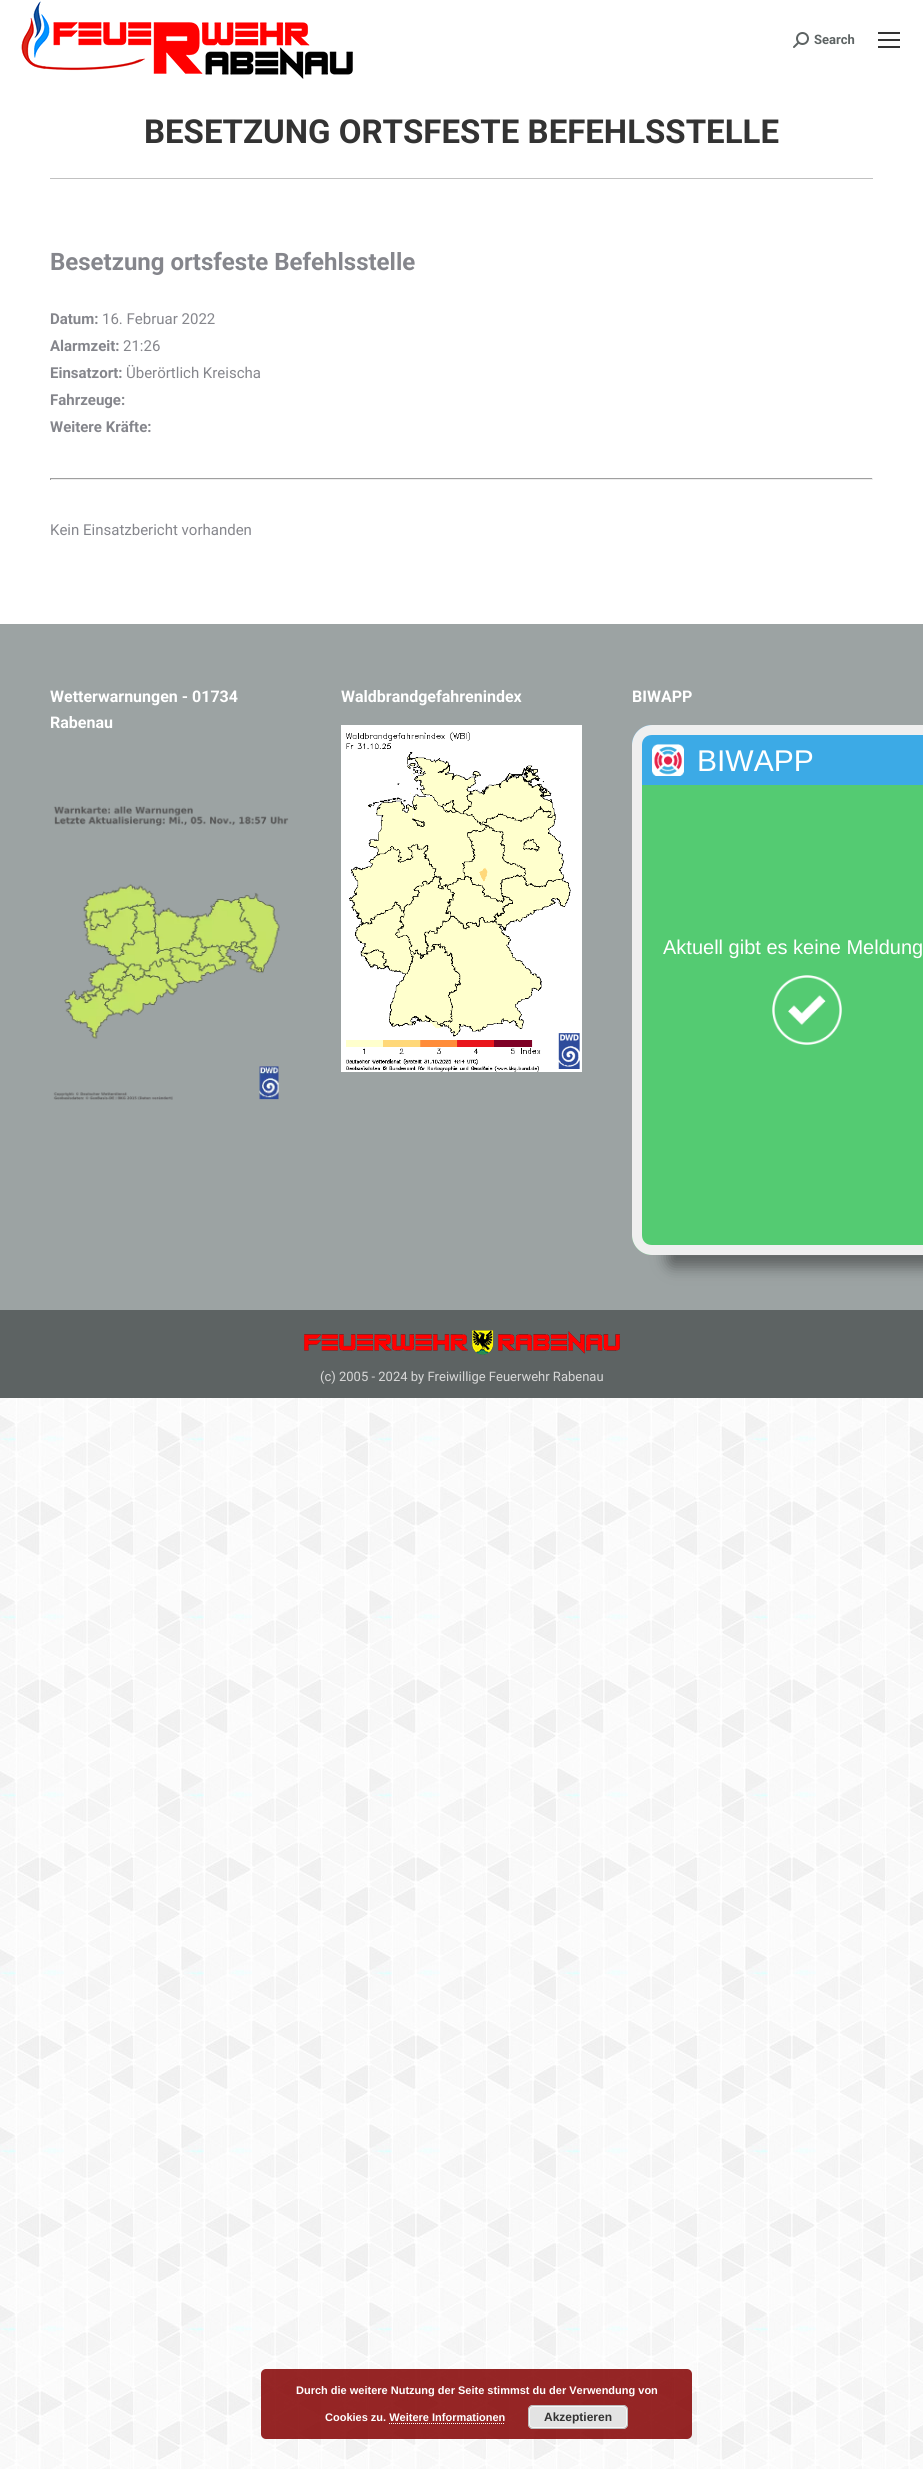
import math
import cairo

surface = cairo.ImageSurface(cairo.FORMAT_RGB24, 923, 2469)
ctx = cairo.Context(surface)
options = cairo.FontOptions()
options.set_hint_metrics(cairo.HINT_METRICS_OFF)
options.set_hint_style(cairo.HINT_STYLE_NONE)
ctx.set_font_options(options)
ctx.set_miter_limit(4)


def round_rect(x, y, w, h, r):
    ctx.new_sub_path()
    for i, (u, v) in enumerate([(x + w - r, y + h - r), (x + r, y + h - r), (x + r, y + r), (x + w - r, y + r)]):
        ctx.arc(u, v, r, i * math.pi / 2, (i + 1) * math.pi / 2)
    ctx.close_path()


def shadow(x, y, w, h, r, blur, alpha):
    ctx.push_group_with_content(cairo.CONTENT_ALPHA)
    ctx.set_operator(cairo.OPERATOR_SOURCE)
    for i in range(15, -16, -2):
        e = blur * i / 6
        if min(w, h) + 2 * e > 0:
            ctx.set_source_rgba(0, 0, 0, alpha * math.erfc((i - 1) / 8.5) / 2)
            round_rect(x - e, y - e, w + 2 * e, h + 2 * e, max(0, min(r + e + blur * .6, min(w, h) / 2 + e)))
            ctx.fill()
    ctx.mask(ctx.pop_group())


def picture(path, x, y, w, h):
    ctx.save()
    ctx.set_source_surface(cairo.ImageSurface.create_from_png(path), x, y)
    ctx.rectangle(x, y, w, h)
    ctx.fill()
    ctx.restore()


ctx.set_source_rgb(1, 1, 1)
ctx.paint()
picture("img1.png", 0, 1398, 923, 1071)
picture("img2.png", 20, 1, 333, 78)
picture("img3.png", 793, 32, 16, 16)
ctx.select_font_face("Roboto", cairo.FONT_SLANT_NORMAL, cairo.FONT_WEIGHT_BOLD)
ctx.set_font_size(13)
ctx.set_source_rgb(0.365, 0.388, 0.388)
ctx.move_to(814, 44)
ctx.show_text("Search")
ctx.set_source_rgb(0.2, 0.2, 0.2)
ctx.rectangle(878, 32, 22, 2)
ctx.fill()
ctx.rectangle(878, 39, 22, 2)
ctx.fill()
ctx.rectangle(878, 46, 22, 2)
ctx.fill()
ctx.set_font_size(33)
ctx.move_to(144, 143)
ctx.show_text("BESETZUNG ORTSFESTE BEFEHLSSTELLE")
ctx.set_source_rgb(0.757, 0.757, 0.757)
ctx.rectangle(50, 178, 823, 1)
ctx.fill()
ctx.set_font_size(24)
ctx.set_source_rgb(0.522, 0.525, 0.549)
ctx.move_to(50, 270)
ctx.show_text("Besetzung ortsfeste Befehlsstelle")
ctx.set_font_size(15)
ctx.move_to(50, 324)
ctx.show_text("Datum:")
ctx.select_font_face("Roboto")
ctx.move_to(102, 324)
ctx.show_text("16. Februar 2022")
ctx.select_font_face("Roboto", cairo.FONT_SLANT_NORMAL, cairo.FONT_WEIGHT_BOLD)
ctx.move_to(50, 351)
ctx.show_text("Alarmzeit:")
ctx.select_font_face("Roboto")
ctx.move_to(123, 351)
ctx.show_text("21:26")
ctx.select_font_face("Roboto", cairo.FONT_SLANT_NORMAL, cairo.FONT_WEIGHT_BOLD)
ctx.move_to(50, 378)
ctx.show_text("Einsatzort:")
ctx.select_font_face("Roboto")
ctx.move_to(126, 378)
ctx.show_text("Überörtlich Kreischa")
ctx.select_font_face("Roboto", cairo.FONT_SLANT_NORMAL, cairo.FONT_WEIGHT_BOLD)
ctx.move_to(50, 405)
ctx.show_text("Fahrzeuge:")
ctx.move_to(50, 432)
ctx.show_text("Weitere Kräfte:")
ctx.set_source_rgb(0.624, 0.624, 0.624)
ctx.rectangle(50, 478, 823, 1)
ctx.fill()
ctx.set_source_rgb(0.933, 0.933, 0.933)
ctx.rectangle(872, 478, 1, 2)
ctx.fill()
ctx.rectangle(50, 479, 823, 1)
ctx.fill()
ctx.set_source_rgb(0.624, 0.624, 0.624)
ctx.rectangle(50, 478, 1, 2)
ctx.fill()
ctx.select_font_face("Roboto")
ctx.set_source_rgb(0.522, 0.525, 0.549)
ctx.move_to(50, 535)
ctx.show_text("Kein Einsatzbericht vorhanden")
ctx.set_source_rgb(0.612, 0.639, 0.639)
ctx.rectangle(0, 624, 923, 686)
ctx.fill()
ctx.select_font_face("Roboto", cairo.FONT_SLANT_NORMAL, cairo.FONT_WEIGHT_BOLD)
ctx.set_font_size(16)
ctx.set_source_rgb(1, 1, 1)
ctx.move_to(50, 702)
ctx.show_text("Wetterwarnungen - 01734")
ctx.move_to(50, 728)
ctx.show_text("Rabenau")
picture("img4.png", 53, 806, 236, 294)
ctx.move_to(341, 702)
ctx.show_text("Waldbrandgefahrenindex")
picture("img5.png", 341, 725, 241, 347)
ctx.move_to(632, 702)
ctx.show_text("BIWAPP")
ctx.set_source_rgb(0.235, 0.667, 0.902)
ctx.new_path()
ctx.move_to(652, 725)
ctx.line_to(923, 725)
ctx.line_to(923, 785)
ctx.line_to(632, 785)
ctx.line_to(632, 745)
ctx.curve_to(632, 734, 641, 725, 652, 725)
ctx.close_path()
ctx.fill()
ctx.set_source_rgb(0.937, 0.937, 0.937)
ctx.set_fill_rule(cairo.FILL_RULE_EVEN_ODD)
ctx.new_path()
ctx.move_to(652, 725)
ctx.line_to(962, 725)
ctx.curve_to(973, 725, 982, 734, 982, 745)
ctx.line_to(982, 785)
ctx.line_to(632, 785)
ctx.line_to(632, 745)
ctx.curve_to(632, 734, 641, 725, 652, 725)
ctx.close_path()
ctx.move_to(652, 735)
ctx.line_to(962, 735)
ctx.curve_to(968, 735, 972, 739, 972, 745)
ctx.line_to(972, 785)
ctx.line_to(642, 785)
ctx.line_to(642, 745)
ctx.curve_to(642, 739, 646, 735, 652, 735)
ctx.close_path()
ctx.fill()
picture("img6.png", 652, 744, 32, 32)
ctx.select_font_face("Liberation Sans")
ctx.set_font_size(30)
ctx.set_source_rgb(1, 1, 1)
ctx.move_to(697, 771)
ctx.show_text("BIWAPP")
ctx.set_source_rgb(0, 0, 0)
shadow(667, 1247, 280, 20, 10, 7.5, 0.4)
ctx.set_source_rgb(0.329, 0.796, 0.447)
ctx.new_path()
ctx.move_to(632, 785)
ctx.line_to(923, 785)
ctx.line_to(923, 1255)
ctx.line_to(652, 1255)
ctx.curve_to(641, 1255, 632, 1246, 632, 1235)
ctx.close_path()
ctx.fill()
ctx.set_source_rgb(0.937, 0.937, 0.937)
ctx.new_path()
ctx.move_to(632, 785)
ctx.line_to(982, 785)
ctx.line_to(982, 1235)
ctx.curve_to(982, 1246, 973, 1255, 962, 1255)
ctx.line_to(652, 1255)
ctx.curve_to(641, 1255, 632, 1246, 632, 1235)
ctx.close_path()
ctx.move_to(642, 785)
ctx.line_to(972, 785)
ctx.line_to(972, 1235)
ctx.curve_to(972, 1241, 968, 1245, 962, 1245)
ctx.line_to(652, 1245)
ctx.curve_to(646, 1245, 642, 1241, 642, 1235)
ctx.close_path()
ctx.fill()
ctx.set_font_size(20)
ctx.set_source_rgb(1, 1, 1)
ctx.move_to(663, 954)
ctx.show_text("Aktuell gibt es keine Meldung")
picture("img7.png", 772, 975, 70, 70)
ctx.set_source_rgb(0.365, 0.388, 0.388)
ctx.rectangle(0, 1310, 923, 88)
ctx.fill()
picture("img8.png", 304, 1330, 316, 25)
ctx.select_font_face("Roboto")
ctx.set_font_size(13)
ctx.set_source_rgb(0.847, 0.847, 0.847)
ctx.move_to(320, 1381)
ctx.show_text("(c) 2005 - 2024 by Freiwillige Feuerwehr Rabenau")
ctx.set_source_rgba(0.518, 0, 0, 0.85)
round_rect(261, 2369, 431, 70, 5)
ctx.fill()
ctx.select_font_face("Liberation Sans", cairo.FONT_SLANT_NORMAL, cairo.FONT_WEIGHT_BOLD)
ctx.set_font_size(11)
ctx.set_source_rgb(1, 1, 1)
ctx.move_to(296, 2394)
ctx.show_text("Durch die weitere Nutzung der Seite stimmst du der Verwendung von")
ctx.move_to(325, 2421)
ctx.show_text("Cookies zu. Weitere Informationen")
ctx.set_source_rgb(0.89, 0.89, 0.89)
round_rect(528, 2405, 100, 24, 5)
ctx.fill()
round_rect(529.5, 2406.5, 97, 21, 3.5)
ctx.set_source_rgb(0.965, 0.965, 0.965)
ctx.set_line_width(1)
ctx.stroke()
round_rect(528.5, 2405.5, 99, 23, 4.5)
ctx.set_source_rgb(0.733, 0.733, 0.733)
ctx.stroke()
ctx.set_font_size(12)
ctx.set_source_rgb(0.2, 0.2, 0.2)
ctx.move_to(544, 2421)
ctx.show_text("Akzeptieren")
ctx.new_path()
ctx.move_to(389, 2423.5)
ctx.line_to(505, 2423.5)
ctx.set_source_rgb(1, 1, 1)
ctx.set_dash([1, 1])
ctx.stroke()
surface.write_to_png("page.png")
